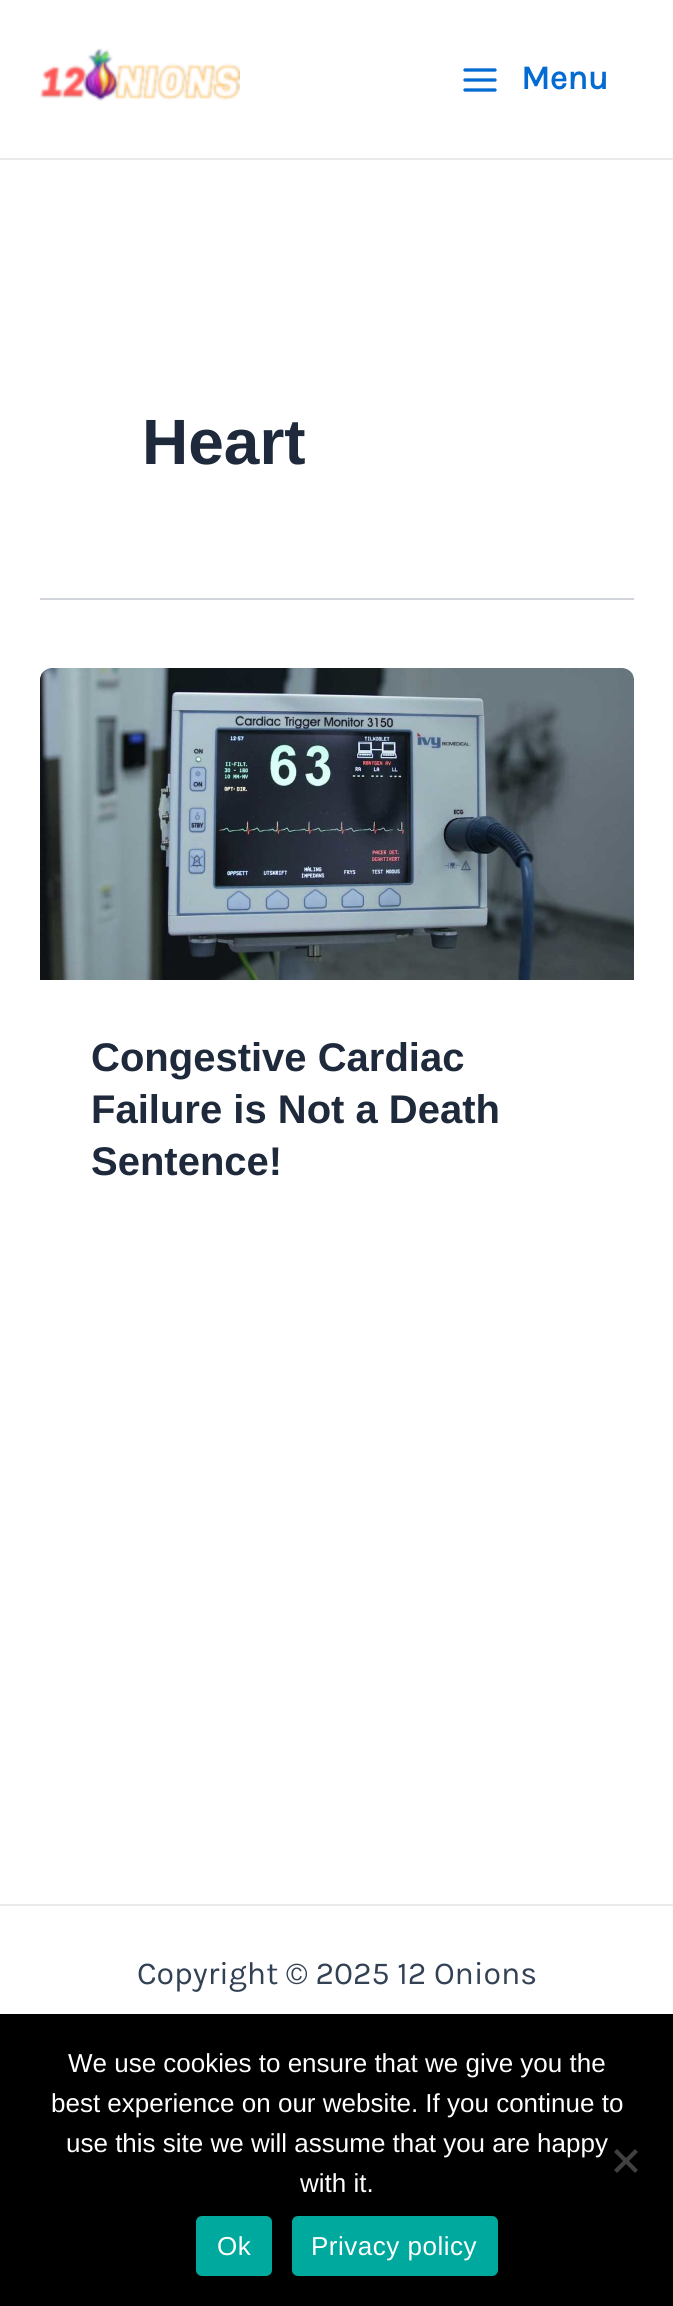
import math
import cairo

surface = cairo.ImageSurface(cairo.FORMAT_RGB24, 673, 2306)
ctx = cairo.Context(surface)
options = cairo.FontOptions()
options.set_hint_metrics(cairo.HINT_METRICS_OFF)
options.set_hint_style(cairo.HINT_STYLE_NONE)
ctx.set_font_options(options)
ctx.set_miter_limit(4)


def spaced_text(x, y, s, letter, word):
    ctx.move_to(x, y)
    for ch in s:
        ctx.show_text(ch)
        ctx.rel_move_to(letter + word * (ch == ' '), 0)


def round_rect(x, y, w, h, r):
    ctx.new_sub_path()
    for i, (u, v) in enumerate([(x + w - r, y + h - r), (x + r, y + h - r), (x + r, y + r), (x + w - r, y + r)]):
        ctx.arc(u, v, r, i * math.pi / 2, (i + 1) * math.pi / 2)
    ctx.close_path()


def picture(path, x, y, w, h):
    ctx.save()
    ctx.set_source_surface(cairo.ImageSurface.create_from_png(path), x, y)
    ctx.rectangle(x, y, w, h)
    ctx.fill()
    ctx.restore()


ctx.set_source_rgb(1, 1, 1)
ctx.paint()
ctx.set_source_rgb(0.918, 0.918, 0.918)
ctx.rectangle(0, 158, 673, 2)
ctx.fill()
picture("img1.png", 40, 48, 200, 53)
picture("img2.png", 463, 68, 34, 24)
ctx.select_font_face("Karla", cairo.FONT_SLANT_NORMAL, cairo.FONT_WEIGHT_BOLD)
ctx.set_font_size(34)
ctx.set_source_rgb(0.016, 0.42, 0.824)
ctx.move_to(521, 89)
ctx.show_text("Menu")
ctx.set_source_rgb(0.82, 0.835, 0.859)
ctx.rectangle(40, 598, 594, 2)
ctx.fill()
ctx.select_font_face("Liberation Sans", cairo.FONT_SLANT_NORMAL, cairo.FONT_WEIGHT_BOLD)
ctx.set_font_size(64)
ctx.set_source_rgb(0.118, 0.161, 0.231)
ctx.move_to(142, 464)
ctx.show_text("Heart")
picture("img3.png", 40, 668, 594, 312)
ctx.set_font_size(40)
ctx.move_to(91, 1071)
ctx.show_text("Congestive Cardiac")
ctx.move_to(91, 1123)
ctx.show_text("Failure is Not a Death")
ctx.move_to(91, 1175)
ctx.show_text("Sentence!")
ctx.set_source_rgb(0.918, 0.918, 0.918)
ctx.rectangle(0, 1904, 673, 2)
ctx.fill()
ctx.select_font_face("Karla")
ctx.set_font_size(32)
ctx.set_source_rgb(0.2, 0.255, 0.333)
ctx.move_to(137, 1984)
ctx.show_text("Copyright © 2025 12 Onions")
ctx.set_source_rgb(0, 0, 0)
ctx.rectangle(0, 2014, 673, 292)
ctx.fill()
ctx.select_font_face("Liberation Sans")
ctx.set_font_size(26)
ctx.set_source_rgb(1, 1, 1)
ctx.move_to(68, 2072)
ctx.show_text("We use cookies to ensure that we give you the")
ctx.move_to(51, 2112)
ctx.show_text("best experience on our website. If you continue to")
ctx.move_to(66, 2152)
ctx.show_text("use this site we will assume that you are happy")
ctx.move_to(300, 2192)
ctx.show_text("with it.")
ctx.set_source_rgb(0.251, 0.251, 0.251)
ctx.new_path()
ctx.move_to(635, 2149)
ctx.line_to(638, 2152)
ctx.line_to(617, 2173)
ctx.line_to(614, 2170)
ctx.close_path()
ctx.fill()
ctx.new_path()
ctx.move_to(614, 2152)
ctx.line_to(617, 2149)
ctx.line_to(638, 2170)
ctx.line_to(635, 2173)
ctx.close_path()
ctx.fill()
ctx.set_source_rgb(0, 0.663, 0.616)
round_rect(196, 2216, 76, 60, 6)
ctx.fill()
ctx.set_source_rgb(1, 1, 1)
spaced_text(217, 2255, "Ok", 0.5, 0)
ctx.set_source_rgb(0, 0.663, 0.616)
round_rect(292, 2216, 206, 60, 6)
ctx.fill()
ctx.set_source_rgb(1, 1, 1)
spaced_text(311, 2255, "Privacy policy", 0.5, 0)
surface.write_to_png("page.png")
